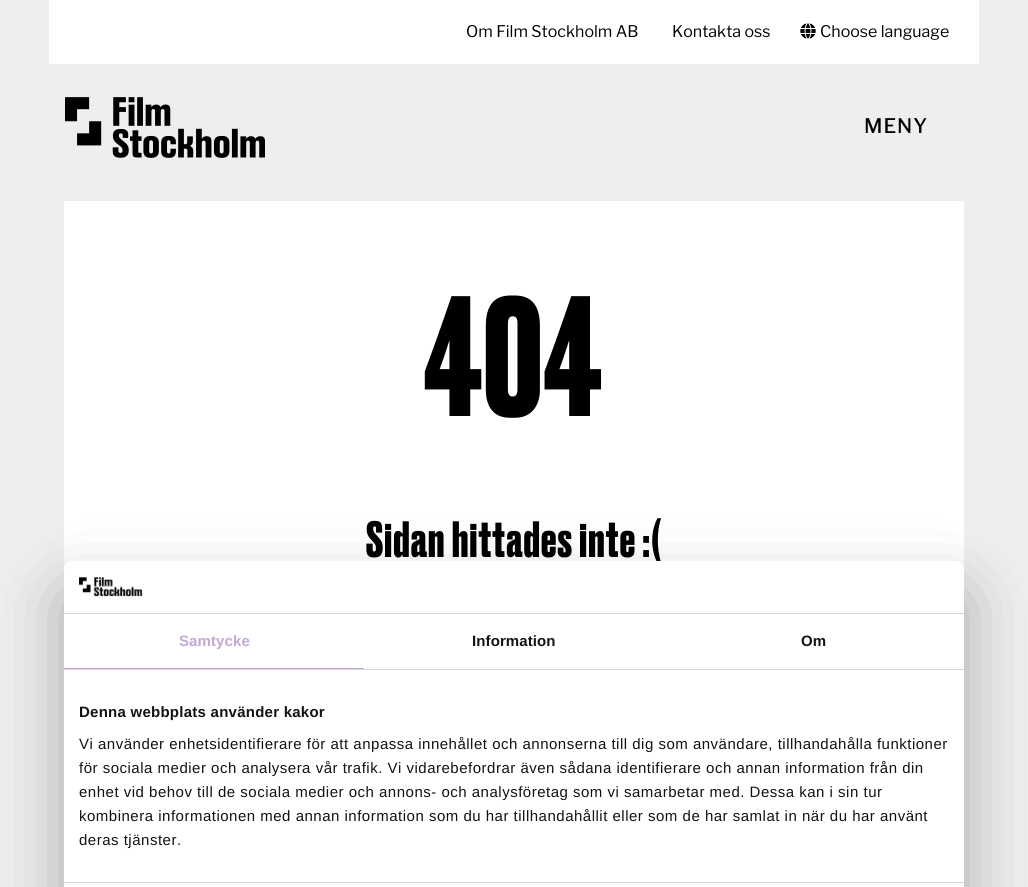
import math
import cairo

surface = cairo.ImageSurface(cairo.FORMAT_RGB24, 1028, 887)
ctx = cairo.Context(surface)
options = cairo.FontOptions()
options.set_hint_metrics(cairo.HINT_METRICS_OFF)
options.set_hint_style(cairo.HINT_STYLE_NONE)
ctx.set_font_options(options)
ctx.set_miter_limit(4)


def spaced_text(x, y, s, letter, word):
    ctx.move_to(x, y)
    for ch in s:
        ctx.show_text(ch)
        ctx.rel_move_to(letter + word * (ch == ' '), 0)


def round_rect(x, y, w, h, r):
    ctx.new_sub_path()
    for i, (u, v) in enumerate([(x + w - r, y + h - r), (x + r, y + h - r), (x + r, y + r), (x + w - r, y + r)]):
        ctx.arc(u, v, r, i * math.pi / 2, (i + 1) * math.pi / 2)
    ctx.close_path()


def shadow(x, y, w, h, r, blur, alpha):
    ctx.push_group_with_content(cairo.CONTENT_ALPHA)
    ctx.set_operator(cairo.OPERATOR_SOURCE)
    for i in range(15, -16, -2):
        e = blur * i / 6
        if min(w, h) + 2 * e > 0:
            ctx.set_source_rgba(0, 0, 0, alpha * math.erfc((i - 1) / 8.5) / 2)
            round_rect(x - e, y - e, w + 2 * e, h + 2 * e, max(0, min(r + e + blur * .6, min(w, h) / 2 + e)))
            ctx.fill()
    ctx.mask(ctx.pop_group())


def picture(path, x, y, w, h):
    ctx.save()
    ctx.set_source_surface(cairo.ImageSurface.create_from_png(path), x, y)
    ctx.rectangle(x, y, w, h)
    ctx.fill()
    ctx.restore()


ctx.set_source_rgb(0.933, 0.933, 0.933)
ctx.paint()
ctx.set_source_rgb(1, 1, 1)
ctx.rectangle(49, 0, 930, 64)
ctx.fill()
ctx.select_font_face("Libre Franklin")
ctx.set_font_size(16)
ctx.set_source_rgb(0, 0, 0)
ctx.move_to(466, 37)
ctx.show_text("Om Film Stockholm AB")
ctx.move_to(672, 37)
ctx.show_text("Kontakta oss")
picture("img1.png", 800, 23, 16, 16)
ctx.move_to(820, 37)
ctx.show_text("Choose language")
picture("img2.png", 65, 97, 200, 61)
ctx.select_font_face("Libre Franklin Medium")
ctx.set_font_size(20)
spaced_text(864, 133, "MENY", 1, 0)
ctx.set_source_rgb(1, 1, 1)
ctx.rectangle(64, 201, 900, 368)
ctx.fill()
ctx.select_font_face("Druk", cairo.FONT_SLANT_NORMAL, cairo.FONT_WEIGHT_BOLD)
ctx.set_font_size(160)
ctx.set_source_rgb(0, 0, 0)
spaced_text(424, 416, "404", 1.25, 0)
ctx.set_font_size(48)
spaced_text(366, 557, "Sidan hittades inte :(", 1.25, 0)
ctx.set_source_rgb(0, 0, 0)
shadow(64, 593, 900, 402, 8, 34, 0.3)
ctx.set_source_rgb(1, 1, 1)
round_rect(64, 561, 900, 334, 8)
ctx.fill()
ctx.set_source_rgb(0.839, 0.839, 0.839)
ctx.rectangle(64, 613, 900, 1)
ctx.fill()
picture("img3.png", 79, 577, 64, 20)
ctx.rectangle(64, 669, 900, 1)
ctx.fill()
ctx.set_source_rgb(0.765, 0.659, 0.835)
ctx.rectangle(64, 668, 300, 1)
ctx.fill()
ctx.select_font_face("Liberation Sans", cairo.FONT_SLANT_NORMAL, cairo.FONT_WEIGHT_BOLD)
ctx.set_font_size(15)
spaced_text(179, 646, "Samtycke", 0.1, 0)
ctx.set_source_rgb(0.078, 0.078, 0.078)
spaced_text(472, 646, "Information", 0.1, 0)
spaced_text(801, 646, "Om", 0.1, 0)
ctx.set_source_rgb(0.839, 0.839, 0.839)
ctx.rectangle(64, 882, 900, 1)
ctx.fill()
ctx.set_source_rgb(0.078, 0.078, 0.078)
spaced_text(79, 717, "Denna webbplats använder kakor", 0.25, 0)
ctx.select_font_face("Liberation Sans")
spaced_text(79, 749, "Vi använder enhetsidentifierare för att anpassa innehållet och annonserna till dig som användare, tillhandahålla funktioner", 0.5, 0)
spaced_text(79, 773, "för sociala medier och analysera vår trafik. Vi vidarebefordrar även sådana identifierare och annan information från din", 0.5, 0)
spaced_text(79, 797, "enhet vid behov till de sociala medier och annons- och analysföretag som vi samarbetar med. Dessa kan i sin tur", 0.5, 0)
spaced_text(79, 821, "kombinera informationen med annan information som du har tillhandahållit eller som de har samlat in när du har använt", 0.5, 0)
spaced_text(79, 845, "deras tjänster.", 0.5, 0)
surface.write_to_png("page.png")
